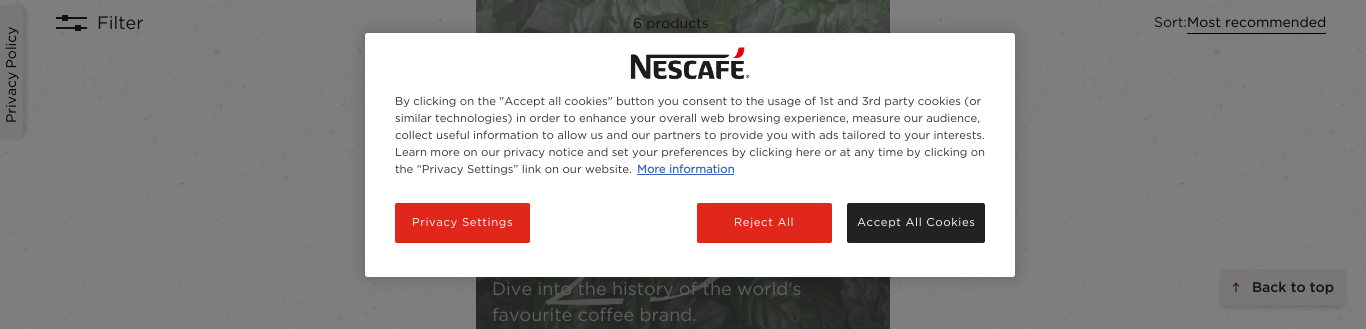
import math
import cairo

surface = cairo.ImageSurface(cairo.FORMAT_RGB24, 1366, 329)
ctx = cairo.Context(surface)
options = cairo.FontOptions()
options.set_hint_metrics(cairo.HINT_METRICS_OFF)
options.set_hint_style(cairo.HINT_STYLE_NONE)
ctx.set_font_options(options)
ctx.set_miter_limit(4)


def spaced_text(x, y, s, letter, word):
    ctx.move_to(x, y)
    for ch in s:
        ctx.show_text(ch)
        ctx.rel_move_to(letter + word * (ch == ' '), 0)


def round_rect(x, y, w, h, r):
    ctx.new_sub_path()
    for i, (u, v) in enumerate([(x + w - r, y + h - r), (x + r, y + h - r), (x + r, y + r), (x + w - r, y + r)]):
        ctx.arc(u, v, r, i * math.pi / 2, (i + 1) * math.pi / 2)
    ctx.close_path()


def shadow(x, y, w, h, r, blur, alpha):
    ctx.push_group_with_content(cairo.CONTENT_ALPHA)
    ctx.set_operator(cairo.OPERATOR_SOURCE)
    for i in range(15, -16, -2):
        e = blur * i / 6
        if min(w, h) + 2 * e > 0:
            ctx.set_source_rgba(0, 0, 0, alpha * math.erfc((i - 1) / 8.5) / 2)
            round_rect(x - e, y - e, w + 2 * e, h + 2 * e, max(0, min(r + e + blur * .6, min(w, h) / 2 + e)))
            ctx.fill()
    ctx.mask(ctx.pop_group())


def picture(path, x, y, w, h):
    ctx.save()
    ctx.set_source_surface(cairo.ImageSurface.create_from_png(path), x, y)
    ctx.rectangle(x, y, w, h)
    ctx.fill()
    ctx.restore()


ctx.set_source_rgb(1, 1, 1)
ctx.paint()
picture("img1.png", 0, 0, 1366, 329)
ctx.set_source_rgb(0.067, 0.067, 0.067)
ctx.rectangle(56, 17, 31, 2)
ctx.fill()
ctx.rectangle(56, 27, 31, 2)
ctx.fill()
ctx.rectangle(62, 15, 6, 6)
ctx.fill()
ctx.rectangle(75, 25, 6, 6)
ctx.fill()
ctx.select_font_face("Gotham")
ctx.set_font_size(18)
ctx.move_to(97, 29)
ctx.show_text("Filter")
picture("img2.png", 476, 0, 414, 329)
ctx.set_font_size(14)
ctx.move_to(633, 28)
ctx.show_text("6 products")
ctx.move_to(1154, 27)
ctx.show_text("Sort:")
ctx.set_source_rgb(0, 0, 0)
ctx.move_to(1187, 27)
ctx.show_text("Most recommended")
ctx.rectangle(1187, 33, 139, 1)
ctx.fill()
gradient = cairo.LinearGradient(683, -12, 683, 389)
gradient.add_color_stop_rgba(0.26, 0, 0, 0, 0)
gradient.add_color_stop_rgba(0.56, 0, 0, 0, 0.37)
ctx.set_source(gradient)
ctx.rectangle(476, 277, 414, 52)
ctx.fill()
ctx.set_font_size(18)
ctx.set_source_rgb(0.369, 0.376, 0.369)
ctx.move_to(492, 295)
ctx.show_text("Dive into the history of the world's")
ctx.move_to(492, 321)
ctx.show_text("favourite coffee brand.")
ctx.set_source_rgb(0, 0, 0)
shadow(4, 5, 23, 134, 8, 2, 0.12)
ctx.set_source_rgb(0.475, 0.467, 0.459)
ctx.new_path()
ctx.move_to(15, 139)
ctx.line_to(0, 139)
ctx.line_to(0, 5)
ctx.line_to(15, 5)
ctx.curve_to(19, 5, 23, 9, 23, 13)
ctx.line_to(23, 131)
ctx.curve_to(23, 135, 19, 139, 15, 139)
ctx.close_path()
ctx.fill()
ctx.set_font_size(14)
ctx.set_source_rgb(0, 0, 0)
ctx.save()
ctx.translate(16, 123)
ctx.rotate(-90 * math.pi / 180)
spaced_text(0, 0, "Privacy Policy", 0, -1)
ctx.restore()
ctx.set_source_rgb(0, 0, 0)
shadow(1220, 273, 126, 36, 7, 2, 0.12)
ctx.set_source_rgb(0.475, 0.467, 0.459)
ctx.new_path()
ctx.move_to(1220, 269)
ctx.line_to(1346, 269)
ctx.line_to(1346, 298)
ctx.curve_to(1346, 302, 1343, 305, 1339, 305)
ctx.line_to(1220, 305)
ctx.close_path()
ctx.fill()
picture("img3.png", 1232, 282, 8, 11)
ctx.select_font_face("Gotham Medium")
ctx.set_source_rgb(0.067, 0.067, 0.067)
ctx.move_to(1252, 292)
ctx.show_text("Back to top")
ctx.set_source_rgb(0, 0, 0)
shadow(365, 33, 650, 244, 2.5, 9, 0.2)
ctx.set_source_rgb(1, 1, 1)
round_rect(365, 33, 650, 244, 2.5)
ctx.fill()
picture("img4.png", 630, 47, 120, 33)
ctx.select_font_face("Gotham")
ctx.set_font_size(11.38)
ctx.set_source_rgb(0.2, 0.2, 0.2)
ctx.move_to(395, 105)
ctx.show_text("By clicking on the \"Accept all cookies\" button you consent to the usage of 1st and 3rd party cookies (or")
ctx.move_to(395, 122)
ctx.show_text("similar technologies) in order to enhance your overall web browsing experience, measure our audience,")
ctx.move_to(395, 139)
ctx.show_text("collect useful information to allow us and our partners to provide you with ads tailored to your interests.")
ctx.move_to(395, 156)
ctx.show_text("Learn more on our privacy notice and set your preferences by clicking here or at any time by clicking on")
ctx.move_to(395, 173)
ctx.show_text("the “Privacy Settings” link on our website.")
ctx.select_font_face("Gotham", cairo.FONT_SLANT_NORMAL, cairo.FONT_WEIGHT_BOLD)
ctx.set_source_rgb(0.22, 0.376, 0.745)
ctx.move_to(637, 173)
ctx.show_text("More information")
ctx.rectangle(637, 174, 97, 1)
ctx.fill()
ctx.set_source_rgb(0.882, 0.149, 0.11)
round_rect(395, 203, 135, 40, 2)
ctx.fill()
ctx.select_font_face("Gotham")
ctx.set_source_rgb(1, 1, 1)
spaced_text(412, 226, "Privacy Settings", 0.6, 0)
ctx.set_source_rgb(0.882, 0.149, 0.11)
round_rect(697, 203, 135, 40, 2)
ctx.fill()
ctx.set_source_rgb(1, 1, 1)
spaced_text(734, 226, "Reject All", 0.6, 0)
ctx.set_source_rgb(0.133, 0.133, 0.133)
round_rect(847, 203, 138, 40, 2)
ctx.fill()
ctx.set_source_rgb(1, 1, 1)
spaced_text(857, 226, "Accept All Cookies", 0.6, 0)
surface.write_to_png("page.png")
